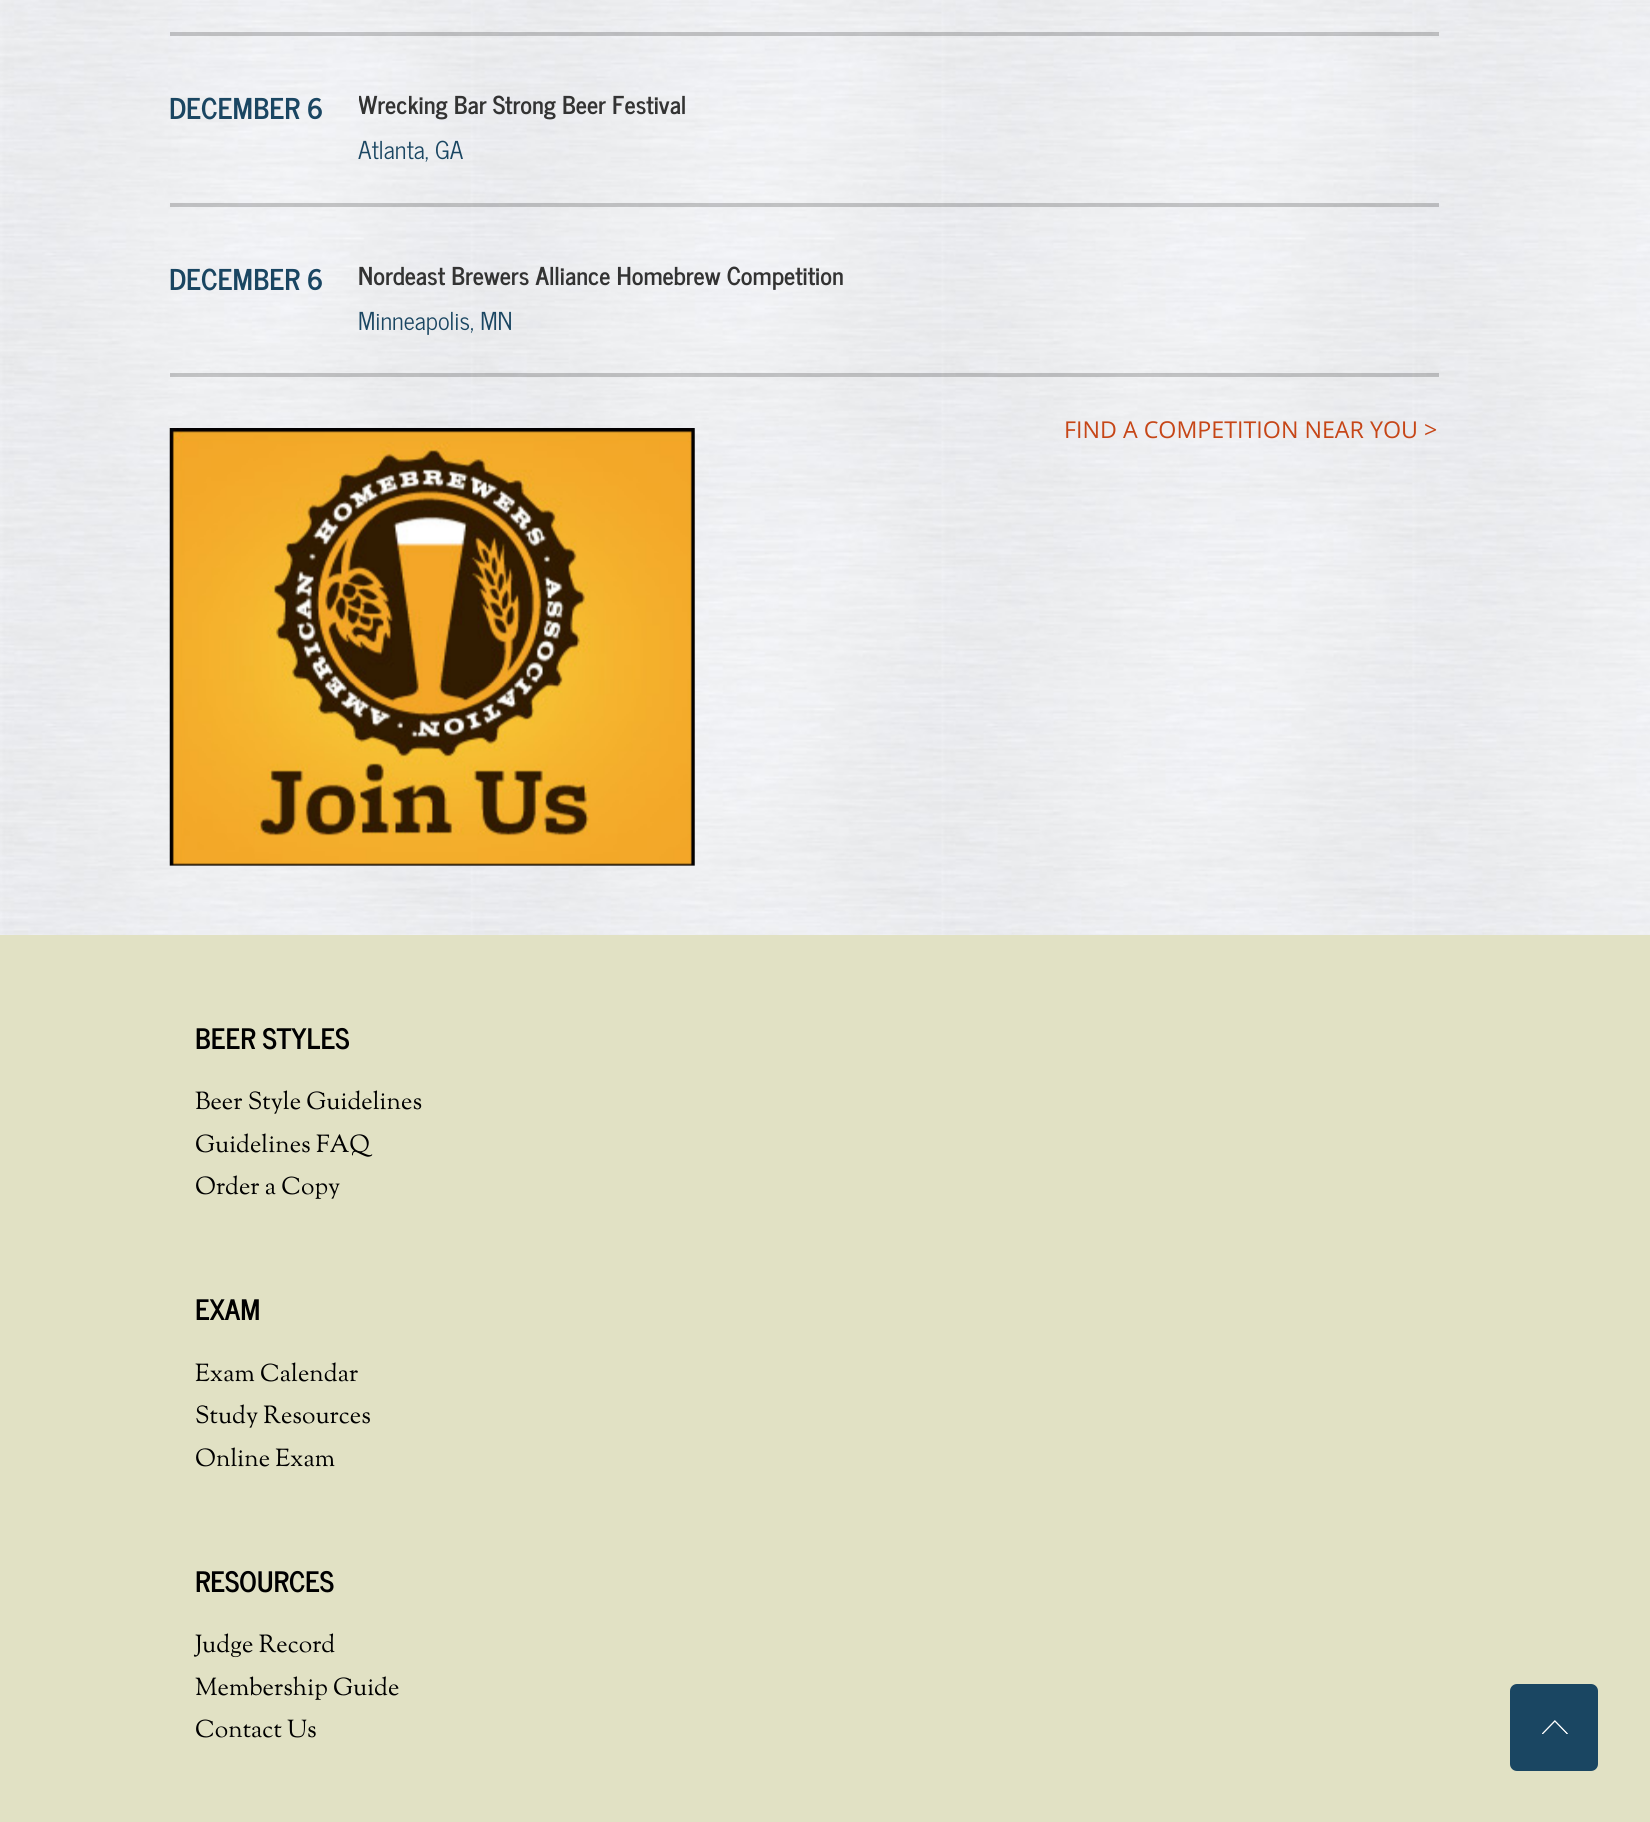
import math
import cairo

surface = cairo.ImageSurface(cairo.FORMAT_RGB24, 1650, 1822)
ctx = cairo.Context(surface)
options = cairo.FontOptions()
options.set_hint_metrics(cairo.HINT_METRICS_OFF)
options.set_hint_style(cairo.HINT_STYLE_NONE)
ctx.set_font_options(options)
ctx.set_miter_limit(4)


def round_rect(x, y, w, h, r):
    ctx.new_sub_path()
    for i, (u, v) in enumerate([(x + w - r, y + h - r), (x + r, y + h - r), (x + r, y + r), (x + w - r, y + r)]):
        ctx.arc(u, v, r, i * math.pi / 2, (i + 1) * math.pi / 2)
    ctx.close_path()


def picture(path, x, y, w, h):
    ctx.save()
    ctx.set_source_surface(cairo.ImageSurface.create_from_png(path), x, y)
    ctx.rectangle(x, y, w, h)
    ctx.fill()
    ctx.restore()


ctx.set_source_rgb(1, 1, 1)
ctx.paint()
picture("img1.png", 0, 0, 1650, 935)
ctx.set_source_rgba(0, 0, 0, 0.2)
ctx.rectangle(170, 32, 1269, 4)
ctx.fill()
ctx.select_font_face("News Cycle", cairo.FONT_SLANT_NORMAL, cairo.FONT_WEIGHT_BOLD)
ctx.set_font_size(28.5)
ctx.set_source_rgb(0.102, 0.275, 0.384)
ctx.move_to(169, 119)
ctx.show_text("DECEMBER 6")
ctx.save()
ctx.rectangle(359, 70, 1080, 98)
ctx.clip()
ctx.set_font_size(24.5)
ctx.set_source_rgb(0.2, 0.2, 0.2)
ctx.move_to(358, 114)
ctx.show_text("Wrecking Bar Strong Beer Festival")
ctx.restore()
ctx.select_font_face("News Cycle")
ctx.set_font_size(24.5)
ctx.move_to(358, 159)
ctx.show_text("Atlanta, GA")
ctx.set_source_rgba(0, 0, 0, 0.2)
ctx.rectangle(170, 203, 1269, 4)
ctx.fill()
ctx.select_font_face("News Cycle", cairo.FONT_SLANT_NORMAL, cairo.FONT_WEIGHT_BOLD)
ctx.set_font_size(28.5)
ctx.set_source_rgb(0.102, 0.275, 0.384)
ctx.move_to(169, 290)
ctx.show_text("DECEMBER 6")
ctx.set_font_size(24.5)
ctx.set_source_rgb(0.2, 0.2, 0.2)
ctx.move_to(358, 285)
ctx.show_text("Nordeast Brewers Alliance Homebrew Competition")
ctx.select_font_face("News Cycle")
ctx.set_source_rgb(0.102, 0.275, 0.384)
ctx.move_to(358, 330)
ctx.show_text("Minneapolis, MN")
ctx.set_source_rgba(0, 0, 0, 0.2)
ctx.rectangle(170, 373, 1269, 4)
ctx.fill()
ctx.select_font_face("Open Sans")
ctx.set_font_size(23.25)
ctx.set_source_rgb(0.776, 0.275, 0.09)
ctx.move_to(1064, 438)
ctx.show_text("FIND A COMPETITION NEAR YOU >")
picture("img2.png", 169, 428, 526, 438)
ctx.set_source_rgb(0.882, 0.882, 0.769)
ctx.rectangle(0, 935, 1650, 887)
ctx.fill()
ctx.select_font_face("News Cycle", cairo.FONT_SLANT_NORMAL, cairo.FONT_WEIGHT_BOLD)
ctx.set_font_size(28)
ctx.set_source_rgb(0, 0, 0)
ctx.move_to(195, 1049)
ctx.show_text("BEER STYLES")
ctx.select_font_face("Sorts Mill Goudy")
ctx.set_font_size(24.5)
ctx.move_to(195, 1109)
ctx.show_text("Beer Style Guidelines")
ctx.move_to(195, 1152)
ctx.show_text("Guidelines FAQ")
ctx.move_to(195, 1194)
ctx.show_text("Order a Copy")
ctx.select_font_face("News Cycle", cairo.FONT_SLANT_NORMAL, cairo.FONT_WEIGHT_BOLD)
ctx.set_font_size(28)
ctx.move_to(195, 1320)
ctx.show_text("EXAM")
ctx.select_font_face("Sorts Mill Goudy")
ctx.set_font_size(24.5)
ctx.move_to(195, 1381)
ctx.show_text("Exam Calendar")
ctx.move_to(195, 1423)
ctx.show_text("Study Resources")
ctx.move_to(195, 1466)
ctx.show_text("Online Exam")
ctx.select_font_face("News Cycle", cairo.FONT_SLANT_NORMAL, cairo.FONT_WEIGHT_BOLD)
ctx.set_font_size(28)
ctx.move_to(195, 1592)
ctx.show_text("RESOURCES")
ctx.select_font_face("Sorts Mill Goudy")
ctx.set_font_size(24.5)
ctx.move_to(195, 1652)
ctx.show_text("Judge Record")
ctx.move_to(195, 1695)
ctx.show_text("Membership Guide")
ctx.move_to(195, 1737)
ctx.show_text("Contact Us")
ctx.set_source_rgb(0.102, 0.275, 0.384)
round_rect(1510, 1684, 88, 87, 7)
ctx.fill()
picture("img3.png", 1542, 1720, 26, 14)
surface.write_to_png("page.png")
